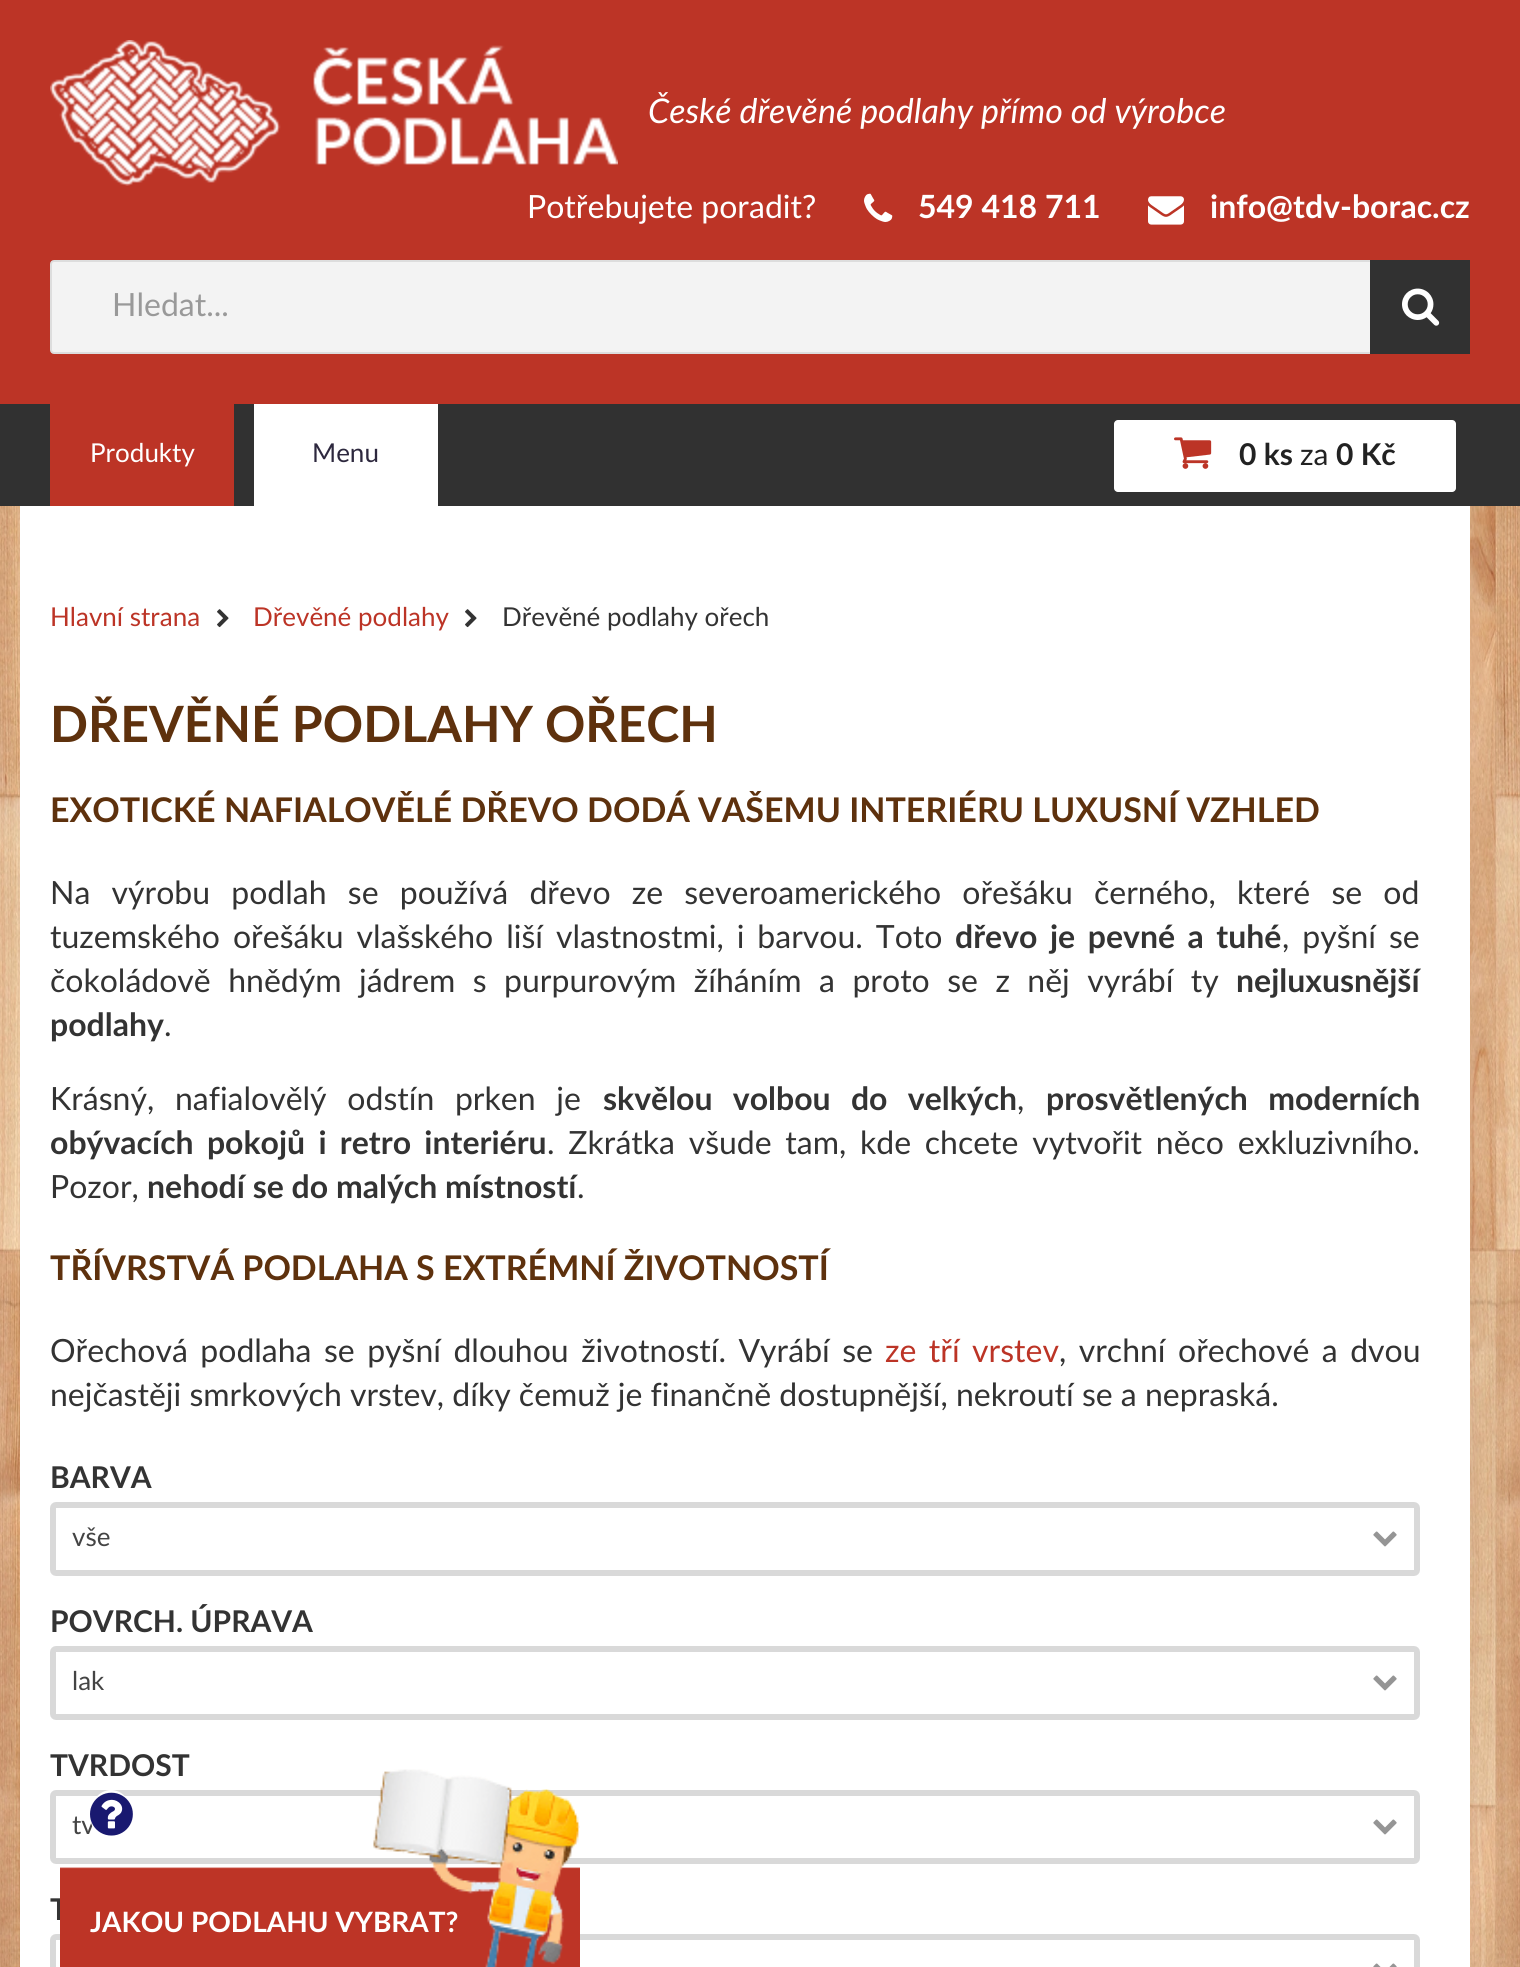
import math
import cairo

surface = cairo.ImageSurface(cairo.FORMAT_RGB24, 1520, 1967)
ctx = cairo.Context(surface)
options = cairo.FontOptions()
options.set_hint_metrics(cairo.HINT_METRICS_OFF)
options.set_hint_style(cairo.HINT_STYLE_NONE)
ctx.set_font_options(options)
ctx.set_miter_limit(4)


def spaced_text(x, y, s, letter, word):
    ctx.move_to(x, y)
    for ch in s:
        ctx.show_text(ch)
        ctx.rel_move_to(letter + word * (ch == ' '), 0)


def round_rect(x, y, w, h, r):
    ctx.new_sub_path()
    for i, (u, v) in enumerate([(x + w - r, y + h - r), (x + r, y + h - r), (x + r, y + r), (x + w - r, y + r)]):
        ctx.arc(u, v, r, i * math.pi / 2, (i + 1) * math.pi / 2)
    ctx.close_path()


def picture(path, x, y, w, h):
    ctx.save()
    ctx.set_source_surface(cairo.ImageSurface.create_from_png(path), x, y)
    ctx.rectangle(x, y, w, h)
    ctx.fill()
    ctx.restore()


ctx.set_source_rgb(1, 1, 1)
ctx.paint()
picture("img1.png", 0, 506, 1520, 1461)
ctx.set_source_rgb(0.737, 0.204, 0.149)
ctx.rectangle(0, 0, 1520, 404)
ctx.fill()
picture("img2.png", 50, 40, 568, 146)
ctx.select_font_face("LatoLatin", cairo.FONT_SLANT_ITALIC)
ctx.set_font_size(34)
ctx.set_source_rgb(1, 1, 1)
ctx.move_to(648, 123)
ctx.show_text("České dřevěné podlahy přímo od výrobce")
ctx.select_font_face("LatoLatin")
ctx.set_font_size(32)
ctx.move_to(527, 218)
ctx.show_text("Potřebujete poradit?")
picture("img3.png", 864, 193, 29, 29)
ctx.select_font_face("LatoLatin", cairo.FONT_SLANT_NORMAL, cairo.FONT_WEIGHT_BOLD)
ctx.move_to(918, 218)
ctx.show_text("549 418 711")
picture("img4.png", 1148, 196, 36, 29)
ctx.move_to(1210, 218)
ctx.show_text("info@tdv-borac.cz")
ctx.set_source_rgb(0.953, 0.953, 0.953)
round_rect(51, 261, 1418, 92, 3)
ctx.fill_preserve()
ctx.set_source_rgb(0.867, 0.867, 0.867)
ctx.stroke()
ctx.select_font_face("LatoLatin")
ctx.set_source_rgb(0.6, 0.6, 0.6)
ctx.move_to(112, 316)
ctx.show_text("Hledat...")
ctx.set_source_rgb(0.192, 0.192, 0.192)
ctx.rectangle(1370, 260, 100, 94)
ctx.fill()
picture("img5.png", 1402, 288, 38, 38)
ctx.rectangle(0, 404, 1520, 102)
ctx.fill()
ctx.set_source_rgb(0.737, 0.204, 0.149)
ctx.rectangle(50, 404, 184, 102)
ctx.fill()
ctx.set_font_size(26)
ctx.set_source_rgb(1, 1, 1)
ctx.move_to(90, 462)
ctx.show_text("Produkty")
ctx.rectangle(254, 404, 184, 102)
ctx.fill()
ctx.set_source_rgb(0.176, 0.157, 0.243)
ctx.move_to(312, 462)
ctx.show_text("Menu")
ctx.set_source_rgb(1, 1, 1)
round_rect(1114, 420, 342, 72, 4)
ctx.fill()
picture("img6.png", 1174, 437, 38, 32)
ctx.select_font_face("LatoLatin", cairo.FONT_SLANT_NORMAL, cairo.FONT_WEIGHT_BOLD)
ctx.set_font_size(30)
ctx.set_source_rgb(0.133, 0.133, 0.133)
ctx.move_to(1239, 465)
ctx.show_text("0 ks")
ctx.select_font_face("LatoLatin")
ctx.move_to(1300, 465)
ctx.show_text("za")
ctx.select_font_face("LatoLatin", cairo.FONT_SLANT_NORMAL, cairo.FONT_WEIGHT_BOLD)
ctx.move_to(1336, 465)
ctx.show_text("0 Kč")
ctx.set_source_rgb(1, 1, 1)
ctx.rectangle(20, 506, 1450, 1461)
ctx.fill()
ctx.select_font_face("LatoLatin")
ctx.set_font_size(26)
ctx.set_source_rgb(0.737, 0.204, 0.149)
ctx.move_to(50, 626)
ctx.show_text("Hlavní strana")
picture("img7.png", 217, 609, 12, 19)
ctx.move_to(253, 626)
ctx.show_text("Dřevěné podlahy")
picture("img7.png", 465, 609, 12, 19)
ctx.set_source_rgb(0.2, 0.2, 0.2)
ctx.move_to(502, 626)
ctx.show_text("Dřevěné podlahy ořech")
ctx.select_font_face("LatoLatin", cairo.FONT_SLANT_NORMAL, cairo.FONT_WEIGHT_BOLD)
ctx.set_font_size(50)
ctx.set_source_rgb(0.369, 0.192, 0.051)
ctx.move_to(50, 742)
ctx.show_text("DŘEVĚNÉ PODLAHY OŘECH")
ctx.set_font_size(34)
ctx.move_to(50, 822)
ctx.show_text("EXOTICKÉ NAFIALOVĚLÉ DŘEVO DODÁ VAŠEMU INTERIÉRU LUXUSNÍ VZHLED")
ctx.select_font_face("LatoLatin")
ctx.set_font_size(32)
ctx.set_source_rgb(0.2, 0.2, 0.2)
spaced_text(50, 904, "Na výrobu podlah se používá dřevo ze severoamerického ořešáku černého, které se od", 0, 13)
spaced_text(50, 948, "tuzemského ořešáku vlašského liší vlastnostmi, i barvou. Toto", 0, 4.75)
ctx.select_font_face("LatoLatin", cairo.FONT_SLANT_NORMAL, cairo.FONT_WEIGHT_BOLD)
spaced_text(955, 948, "dřevo je pevné a tuhé", 0, 4.75)
ctx.select_font_face("LatoLatin")
spaced_text(1282, 948, ", pyšní se", 0, 4.75)
spaced_text(50, 992, "čokoládově hnědým jádrem s purpurovým žíháním a proto se z něj vyrábí ty", 0, 9.25)
ctx.select_font_face("LatoLatin", cairo.FONT_SLANT_NORMAL, cairo.FONT_WEIGHT_BOLD)
ctx.move_to(1236, 992)
ctx.show_text("nejluxusnější")
ctx.move_to(50, 1036)
ctx.show_text("podlahy")
ctx.select_font_face("LatoLatin")
ctx.move_to(164, 1036)
ctx.show_text(".")
spaced_text(50, 1110, "Krásný, nafialovělý odstín prken je", 0, 12.5)
ctx.select_font_face("LatoLatin", cairo.FONT_SLANT_NORMAL, cairo.FONT_WEIGHT_BOLD)
spaced_text(603, 1110, "skvělou volbou do velkých", 0, 12.5)
ctx.select_font_face("LatoLatin")
ctx.move_to(1017, 1110)
ctx.show_text(",")
ctx.select_font_face("LatoLatin", cairo.FONT_SLANT_NORMAL, cairo.FONT_WEIGHT_BOLD)
spaced_text(1046, 1110, "prosvětlených moderních", 0, 12.5)
spaced_text(50, 1154, "obývacích pokojů i retro interiéru", 0, 5.5)
ctx.select_font_face("LatoLatin")
spaced_text(547, 1154, ". Zkrátka všude tam, kde chcete vytvořit něco exkluzivního.", 0, 5.5)
ctx.move_to(50, 1198)
ctx.show_text("Pozor,")
ctx.select_font_face("LatoLatin", cairo.FONT_SLANT_NORMAL, cairo.FONT_WEIGHT_BOLD)
ctx.move_to(147, 1198)
ctx.show_text("nehodí se do malých místností")
ctx.select_font_face("LatoLatin")
ctx.move_to(577, 1198)
ctx.show_text(".")
ctx.select_font_face("LatoLatin", cairo.FONT_SLANT_NORMAL, cairo.FONT_WEIGHT_BOLD)
ctx.set_font_size(34)
ctx.set_source_rgb(0.369, 0.192, 0.051)
ctx.move_to(50, 1280)
ctx.show_text("TŘÍVRSTVÁ PODLAHA S EXTRÉMNÍ ŽIVOTNOSTÍ")
ctx.select_font_face("LatoLatin")
ctx.set_font_size(32)
ctx.set_source_rgb(0.2, 0.2, 0.2)
spaced_text(50, 1362, "Ořechová podlaha se pyšní dlouhou životností. Vyrábí se", 0, 4.25)
ctx.set_source_rgb(0.737, 0.204, 0.149)
spaced_text(885, 1362, "ze tří vrstev", 0, 4.25)
ctx.set_source_rgb(0.2, 0.2, 0.2)
spaced_text(1059, 1362, ", vrchní ořechové a dvou", 0, 4.25)
ctx.move_to(50, 1406)
ctx.show_text("nejčastěji smrkových vrstev, díky čemuž je finančně dostupnější, nekroutí se a nepraská.")
ctx.select_font_face("LatoLatin", cairo.FONT_SLANT_NORMAL, cairo.FONT_WEIGHT_BOLD)
ctx.set_font_size(30)
ctx.move_to(50, 1488)
ctx.show_text("BARVA")
round_rect(53, 1505, 1364, 68, 3)
ctx.set_source_rgb(0.851, 0.851, 0.851)
ctx.set_line_width(6)
ctx.stroke()
ctx.select_font_face("LatoLatin")
ctx.set_font_size(26)
ctx.set_source_rgb(0.267, 0.267, 0.267)
ctx.move_to(72, 1546)
ctx.show_text("vše")
picture("img8.png", 1373, 1531, 24, 16)
ctx.select_font_face("LatoLatin", cairo.FONT_SLANT_NORMAL, cairo.FONT_WEIGHT_BOLD)
ctx.set_font_size(30)
ctx.set_source_rgb(0.2, 0.2, 0.2)
ctx.move_to(50, 1632)
ctx.show_text("POVRCH. ÚPRAVA")
round_rect(53, 1649, 1364, 68, 3)
ctx.set_source_rgb(0.851, 0.851, 0.851)
ctx.stroke()
ctx.select_font_face("LatoLatin")
ctx.set_font_size(26)
ctx.set_source_rgb(0.267, 0.267, 0.267)
ctx.move_to(72, 1690)
ctx.show_text("lak")
picture("img8.png", 1373, 1675, 24, 16)
ctx.select_font_face("LatoLatin", cairo.FONT_SLANT_NORMAL, cairo.FONT_WEIGHT_BOLD)
ctx.set_font_size(30)
ctx.set_source_rgb(0.2, 0.2, 0.2)
ctx.move_to(50, 1776)
ctx.show_text("TVRDOST")
round_rect(53, 1793, 1364, 68, 3)
ctx.set_source_rgb(0.851, 0.851, 0.851)
ctx.stroke()
ctx.select_font_face("LatoLatin")
ctx.set_font_size(26)
ctx.set_source_rgb(0.267, 0.267, 0.267)
ctx.move_to(72, 1834)
ctx.show_text("tv")
picture("img8.png", 1373, 1819, 24, 16)
ctx.select_font_face("LatoLatin", cairo.FONT_SLANT_NORMAL, cairo.FONT_WEIGHT_BOLD)
ctx.set_font_size(30)
ctx.set_source_rgb(0.2, 0.2, 0.2)
ctx.move_to(50, 1920)
ctx.show_text("T")
round_rect(53, 1937, 1364, 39, 3)
ctx.set_source_rgb(0.851, 0.851, 0.851)
ctx.stroke()
picture("img9.png", 1373, 1963, 24, 4)
picture("img10.png", 60, 1769, 520, 198)
ctx.set_source_rgb(1, 1, 1)
ctx.new_path()
ctx.move_to(111, 1790)
ctx.curve_to(122.5, 1790, 132, 1801, 132, 1815)
ctx.curve_to(132, 1829, 122.5, 1840, 111, 1840)
ctx.curve_to(99.5, 1840, 90, 1829, 90, 1815)
ctx.curve_to(90, 1801, 99.5, 1790, 111, 1790)
ctx.close_path()
ctx.fill()
picture("img11.png", 90, 1792, 43, 44)
ctx.set_font_size(28)
ctx.move_to(90, 1932)
ctx.show_text("JAKOU PODLAHU VYBRAT?")
surface.write_to_png("page.png")
